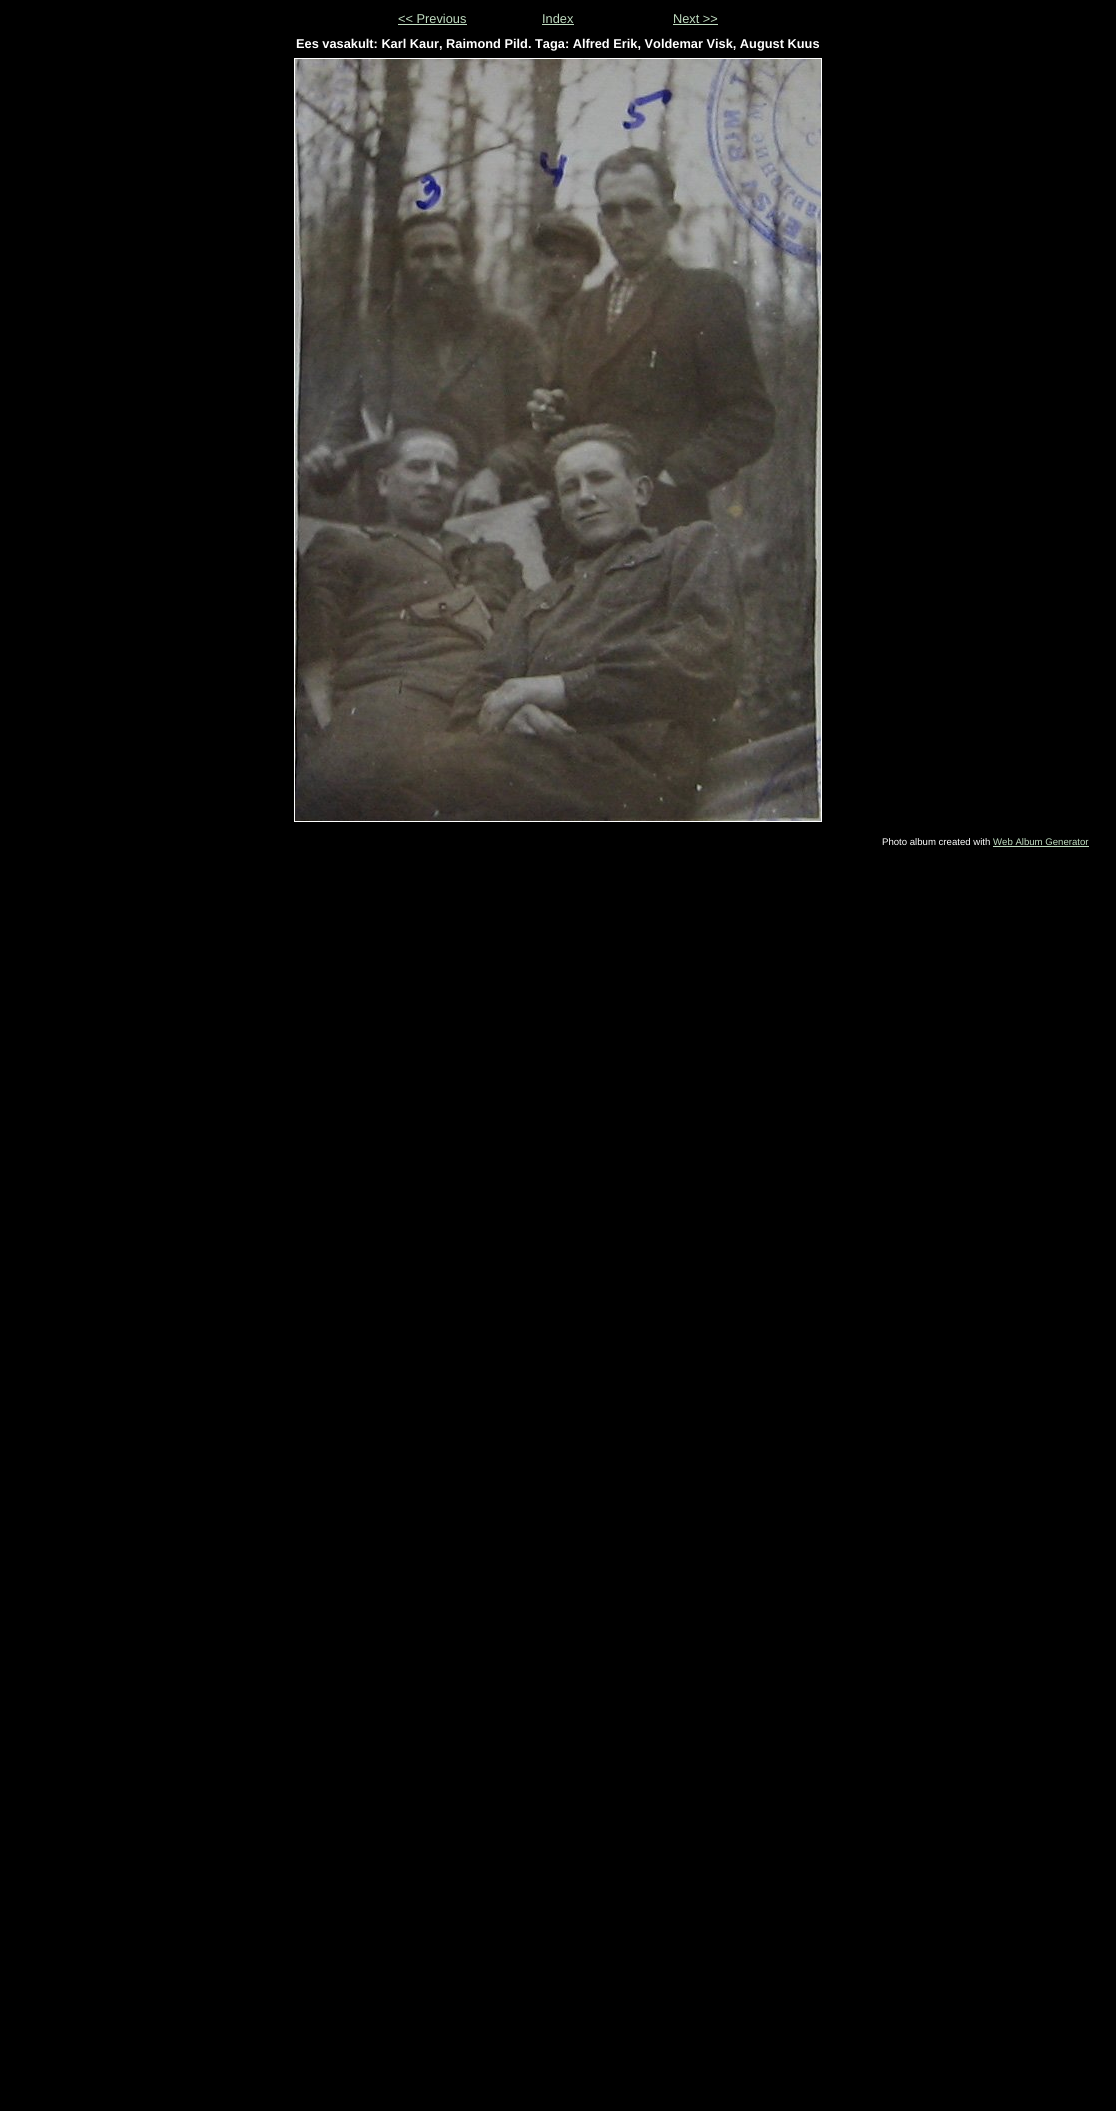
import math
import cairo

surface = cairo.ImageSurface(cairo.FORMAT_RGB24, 1116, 2111)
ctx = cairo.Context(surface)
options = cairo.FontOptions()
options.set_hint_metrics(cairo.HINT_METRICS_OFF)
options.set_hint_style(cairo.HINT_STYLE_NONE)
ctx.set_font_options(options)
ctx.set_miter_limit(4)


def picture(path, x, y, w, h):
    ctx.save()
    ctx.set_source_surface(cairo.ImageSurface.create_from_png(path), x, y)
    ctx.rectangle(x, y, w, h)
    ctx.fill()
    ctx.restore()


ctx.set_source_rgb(0, 0, 0)
ctx.paint()
ctx.select_font_face("Liberation Sans")
ctx.set_font_size(12.8)
ctx.set_source_rgb(0.753, 0.863, 0.753)
ctx.move_to(398, 23)
ctx.show_text("<< Previous")
ctx.rectangle(398, 24, 69, 1)
ctx.fill()
ctx.move_to(542, 23)
ctx.show_text("Index")
ctx.rectangle(542, 24, 32, 1)
ctx.fill()
ctx.move_to(673, 23)
ctx.show_text("Next >>")
ctx.rectangle(673, 24, 45, 1)
ctx.fill()
ctx.select_font_face("Liberation Sans", cairo.FONT_SLANT_NORMAL, cairo.FONT_WEIGHT_BOLD)
ctx.set_source_rgb(1, 1, 1)
ctx.move_to(296, 48)
ctx.show_text("Ees vasakult: Karl Kaur, Raimond Pild. Taga: Alfred Erik, Voldemar Visk, August Kuus")
ctx.rectangle(294.5, 58.5, 527, 763)
ctx.set_line_width(1)
ctx.stroke()
picture("img1.png", 295, 59, 526, 762)
ctx.select_font_face("Liberation Sans")
ctx.set_font_size(9.6)
ctx.move_to(882, 845)
ctx.show_text("Photo album created with")
ctx.set_source_rgb(0.753, 0.863, 0.753)
ctx.move_to(993, 845)
ctx.show_text("Web Album Generator")
ctx.rectangle(993, 846, 96, 1)
ctx.fill()
surface.write_to_png("page.png")
